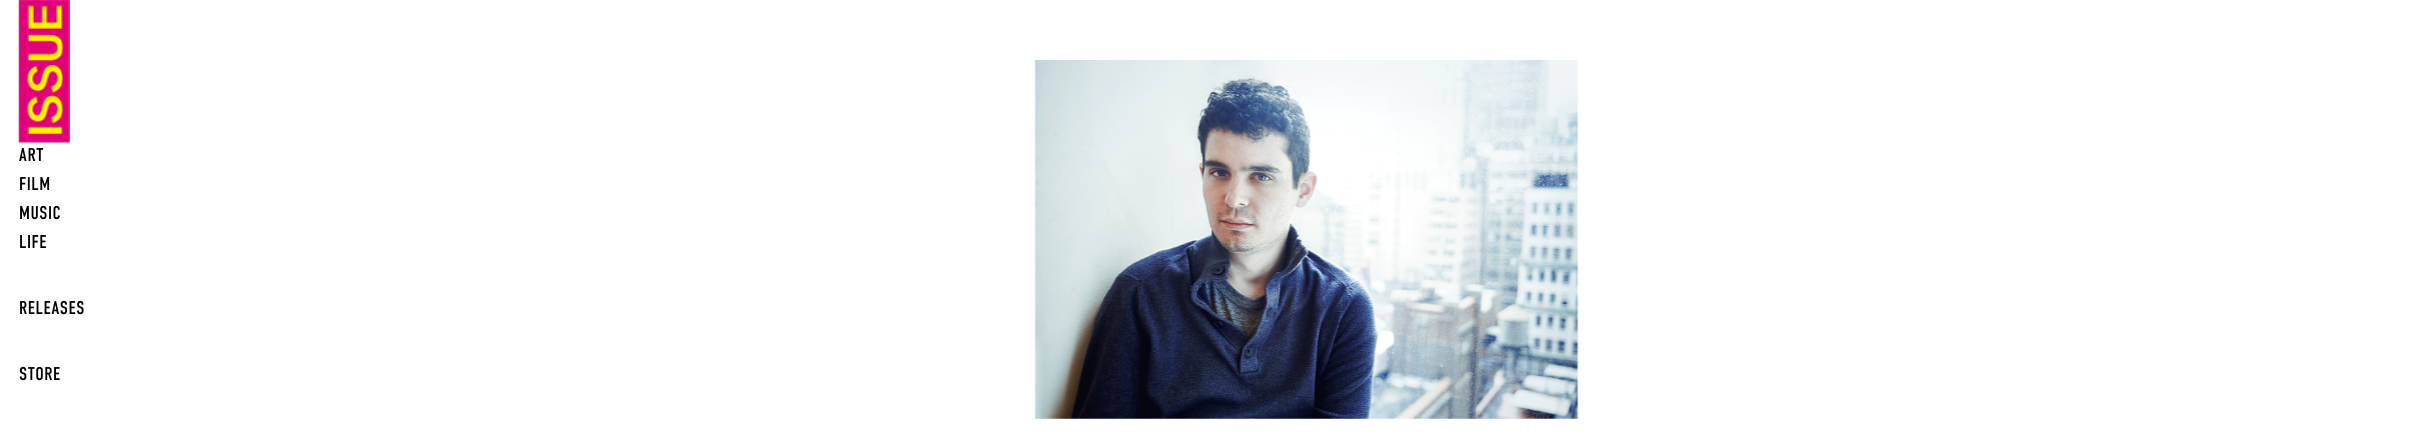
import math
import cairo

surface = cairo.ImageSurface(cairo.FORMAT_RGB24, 2436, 448)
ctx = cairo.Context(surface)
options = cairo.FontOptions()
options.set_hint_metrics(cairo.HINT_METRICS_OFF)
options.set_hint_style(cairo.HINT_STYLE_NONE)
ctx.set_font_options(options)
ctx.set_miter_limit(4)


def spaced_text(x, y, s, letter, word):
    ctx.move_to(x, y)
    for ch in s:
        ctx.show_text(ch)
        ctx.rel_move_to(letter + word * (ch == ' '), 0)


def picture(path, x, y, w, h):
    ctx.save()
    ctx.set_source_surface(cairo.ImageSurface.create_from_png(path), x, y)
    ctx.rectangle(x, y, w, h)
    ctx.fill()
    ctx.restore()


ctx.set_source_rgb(1, 1, 1)
ctx.paint()
picture("img1.png", 18, 0, 52, 143)
ctx.select_font_face("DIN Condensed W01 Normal")
ctx.set_font_size(18.5)
ctx.set_source_rgb(0, 0, 0)
spaced_text(19, 161, "ART", 0.5, 0)
spaced_text(19, 190, "FILM", 0.5, 0)
spaced_text(19, 219, "MUSIC", 0.5, 0)
spaced_text(19, 248, "LIFE", 0.5, 0)
spaced_text(19, 314, "RELEASES", 0.5, 0)
spaced_text(19, 380, "STORE", 0.5, 0)
picture("img2.png", 1034, 60, 545, 359)
surface.write_to_png("page.png")
